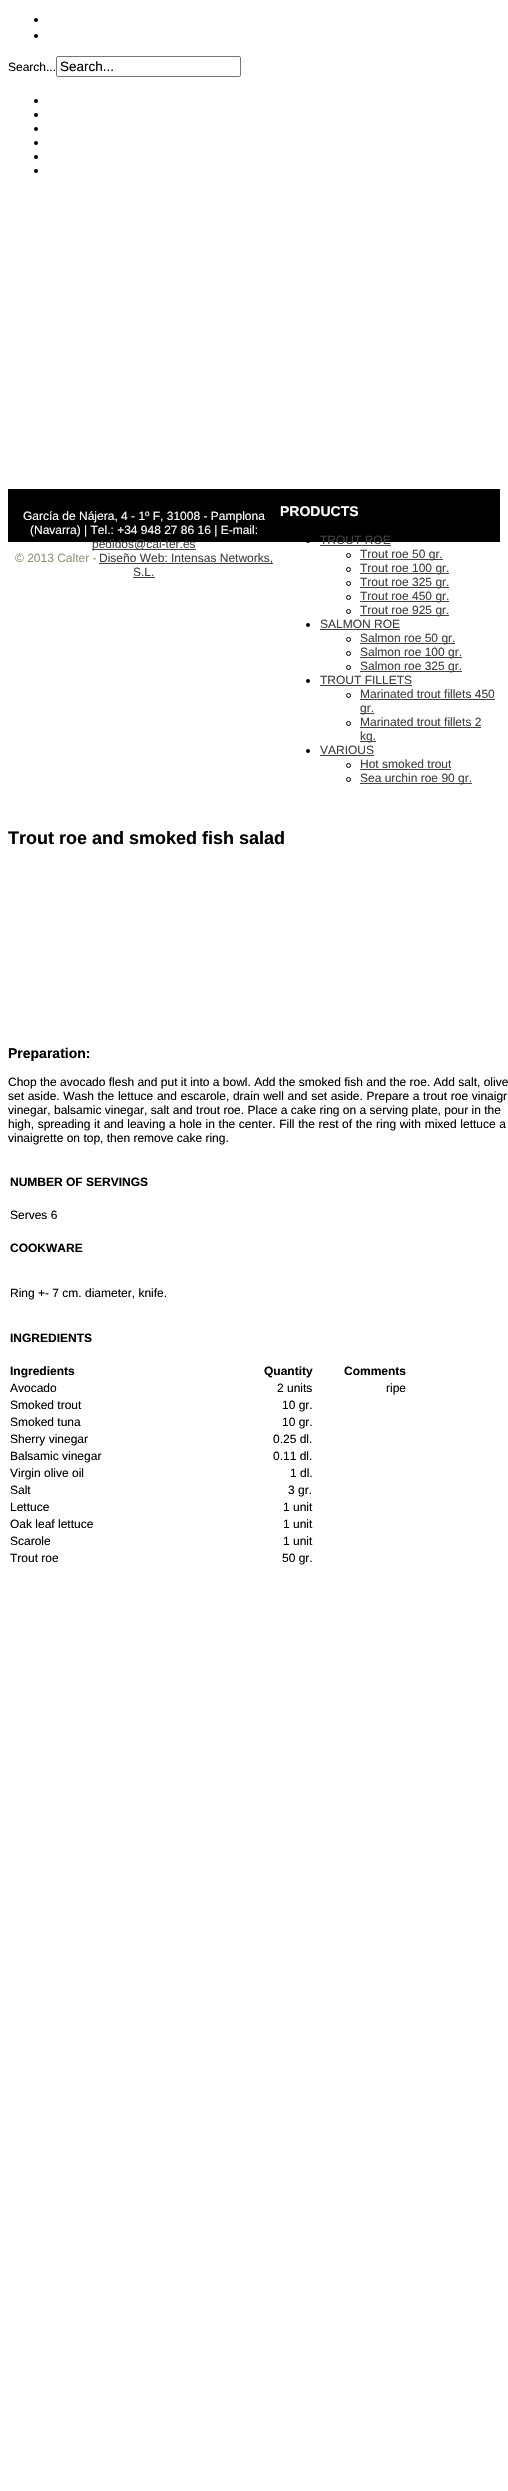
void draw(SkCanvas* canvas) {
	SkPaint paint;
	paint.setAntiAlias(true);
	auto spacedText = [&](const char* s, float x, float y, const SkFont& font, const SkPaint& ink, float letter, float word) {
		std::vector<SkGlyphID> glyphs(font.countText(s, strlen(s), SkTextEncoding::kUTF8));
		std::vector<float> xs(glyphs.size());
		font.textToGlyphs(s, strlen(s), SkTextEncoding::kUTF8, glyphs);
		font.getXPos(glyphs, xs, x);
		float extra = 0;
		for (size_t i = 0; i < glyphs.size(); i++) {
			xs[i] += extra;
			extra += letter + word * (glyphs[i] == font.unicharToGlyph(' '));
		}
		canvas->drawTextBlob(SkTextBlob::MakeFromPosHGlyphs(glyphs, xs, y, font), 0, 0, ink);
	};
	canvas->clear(0xffffffff);
	paint.setColor(0xff000000);
	canvas->drawCircle(36, 20, 2, paint);
	canvas->drawCircle(36, 36, 2, paint);
	SkFont f1(fontMgr->matchFamilyStyle("Liberation Sans", SkFontStyle::Normal()), 12);
	f1.setSubpixel(true);
	canvas->drawString("Search...", 8, 71, f1, paint);
	paint.setStroke(true);
	paint.setStrokeWidth(1);
	paint.setColor(0xff767676);
	canvas->drawRoundRect(SkRect::MakeXYWH(56.5, 56.5, 184, 20), 1.5, 1.5, paint);
	SkFont f2(fontMgr->matchFamilyStyle("Liberation Sans", SkFontStyle::Normal()), 13.5);
	f2.setSubpixel(true);
	paint.setStroke(false);
	paint.setColor(0xff000000);
	canvas->drawString("Search...", 60, 71, f2, paint);
	canvas->drawCircle(36, 101, 2, paint);
	canvas->drawCircle(36, 115, 2, paint);
	canvas->drawCircle(36, 129, 2, paint);
	canvas->drawCircle(36, 143, 2, paint);
	canvas->drawCircle(36, 157, 2, paint);
	canvas->drawCircle(36, 171, 2, paint);
	canvas->drawRect(SkRect::MakeXYWH(8, 489, 492, 53), paint);
	SkFont f3(fontMgr->matchFamilyStyle("Liberation Sans", SkFontStyle::Bold()), 14);
	f3.setSubpixel(true);
	paint.setColor(0xffffffff);
	canvas->drawString("PRODUCTS", 280, 516, f3, paint);
	paint.setColor(0xff000000);
	canvas->drawCircle(308, 541, 2, paint);
	paint.setColor(0xff41403e);
	canvas->drawString("TROUT ROE", 320, 544, f1, paint);
	canvas->drawRect(SkRect::MakeXYWH(320, 545, 71, 1), paint);
	paint.setStroke(true);
	paint.setColor(0xff000000);
	canvas->drawCircle(348.5, 555.5, 2, paint);
	paint.setStroke(false);
	paint.setColor(0xff41403e);
	canvas->drawRect(SkRect::MakeXYWH(360, 559, 83, 1), paint);
	canvas->drawString("Trout roe 50 gr.", 360, 558, f1, paint);
	paint.setStroke(true);
	paint.setColor(0xff000000);
	canvas->drawCircle(348.5, 569.5, 2, paint);
	paint.setStroke(false);
	paint.setColor(0xff41403e);
	canvas->drawRect(SkRect::MakeXYWH(360, 573, 89, 1), paint);
	canvas->drawString("Trout roe 100 gr.", 360, 572, f1, paint);
	paint.setStroke(true);
	paint.setColor(0xff000000);
	canvas->drawCircle(348.5, 583.5, 2, paint);
	paint.setStroke(false);
	paint.setColor(0xff41403e);
	canvas->drawRect(SkRect::MakeXYWH(360, 587, 89, 1), paint);
	canvas->drawString("Trout roe 325 gr.", 360, 586, f1, paint);
	paint.setStroke(true);
	paint.setColor(0xff000000);
	canvas->drawCircle(348.5, 597.5, 2, paint);
	paint.setStroke(false);
	paint.setColor(0xff41403e);
	canvas->drawRect(SkRect::MakeXYWH(360, 601, 89, 1), paint);
	canvas->drawString("Trout roe 450 gr.", 360, 600, f1, paint);
	paint.setStroke(true);
	paint.setColor(0xff000000);
	canvas->drawCircle(348.5, 611.5, 2, paint);
	paint.setStroke(false);
	paint.setColor(0xff41403e);
	canvas->drawRect(SkRect::MakeXYWH(360, 615, 89, 1), paint);
	canvas->drawString("Trout roe 925 gr.", 360, 614, f1, paint);
	paint.setColor(0xff000000);
	canvas->drawCircle(308, 625, 2, paint);
	paint.setColor(0xff41403e);
	canvas->drawString("SALMON ROE", 320, 628, f1, paint);
	canvas->drawRect(SkRect::MakeXYWH(320, 629, 80, 1), paint);
	paint.setStroke(true);
	paint.setColor(0xff000000);
	canvas->drawCircle(348.5, 639.5, 2, paint);
	paint.setStroke(false);
	paint.setColor(0xff41403e);
	canvas->drawRect(SkRect::MakeXYWH(360, 643, 95, 1), paint);
	canvas->drawString("Salmon roe 50 gr.", 360, 642, f1, paint);
	paint.setStroke(true);
	paint.setColor(0xff000000);
	canvas->drawCircle(348.5, 653.5, 2, paint);
	paint.setStroke(false);
	paint.setColor(0xff41403e);
	canvas->drawRect(SkRect::MakeXYWH(360, 657, 102, 1), paint);
	canvas->drawString("Salmon roe 100 gr.", 360, 656, f1, paint);
	paint.setStroke(true);
	paint.setColor(0xff000000);
	canvas->drawCircle(348.5, 667.5, 2, paint);
	paint.setStroke(false);
	paint.setColor(0xff41403e);
	canvas->drawRect(SkRect::MakeXYWH(360, 671, 102, 1), paint);
	canvas->drawString("Salmon roe 325 gr.", 360, 670, f1, paint);
	paint.setColor(0xff000000);
	canvas->drawCircle(308, 681, 2, paint);
	paint.setColor(0xff41403e);
	canvas->drawString("TROUT FILLETS", 320, 684, f1, paint);
	canvas->drawRect(SkRect::MakeXYWH(320, 685, 92, 1), paint);
	paint.setStroke(true);
	paint.setColor(0xff000000);
	canvas->drawCircle(348.5, 695.5, 2, paint);
	paint.setStroke(false);
	paint.setColor(0xff41403e);
	canvas->drawString("Marinated trout fillets 450", 360, 698, f1, paint);
	canvas->drawRect(SkRect::MakeXYWH(360, 699, 135, 1), paint);
	canvas->drawRect(SkRect::MakeXYWH(360, 713, 14, 1), paint);
	canvas->drawString("gr.", 360, 712, f1, paint);
	paint.setStroke(true);
	paint.setColor(0xff000000);
	canvas->drawCircle(348.5, 723.5, 2, paint);
	paint.setStroke(false);
	paint.setColor(0xff41403e);
	canvas->drawString("Marinated trout fillets 2", 360, 726, f1, paint);
	canvas->drawRect(SkRect::MakeXYWH(360, 727, 121, 1), paint);
	canvas->drawRect(SkRect::MakeXYWH(360, 741, 16, 1), paint);
	canvas->drawString("kg.", 360, 740, f1, paint);
	paint.setColor(0xff000000);
	canvas->drawCircle(308, 751, 2, paint);
	paint.setColor(0xff41403e);
	canvas->drawString("VARIOUS", 320, 754, f1, paint);
	canvas->drawRect(SkRect::MakeXYWH(320, 755, 54, 1), paint);
	paint.setStroke(true);
	paint.setColor(0xff000000);
	canvas->drawCircle(348.5, 765.5, 2, paint);
	paint.setStroke(false);
	paint.setColor(0xff41403e);
	canvas->drawString("Hot smoked trout", 360, 768, f1, paint);
	canvas->drawRect(SkRect::MakeXYWH(360, 769, 91, 1), paint);
	paint.setStroke(true);
	paint.setColor(0xff000000);
	canvas->drawCircle(348.5, 779.5, 2, paint);
	paint.setStroke(false);
	paint.setColor(0xff41403e);
	canvas->drawRect(SkRect::MakeXYWH(360, 783, 112, 1), paint);
	canvas->drawString("Sea urchin roe 90 gr.", 360, 782, f1, paint);
	SkFont f4(fontMgr->matchFamilyStyle("Liberation Sans", SkFontStyle::Bold()), 18);
	f4.setSubpixel(true);
	paint.setColor(0xff000000);
	canvas->drawString("Trout roe and smoked fish salad", 8, 844, f4, paint);
	canvas->drawString("Preparation:", 8, 1058, f3, paint);
	canvas->drawString("Chop the avocado flesh and put it into a bowl. Add the smoked fish and the roe. Add salt, olive", 8, 1086, f1, paint);
	spacedText("set aside. Wash the lettuce and escarole, drain well and set aside. Prepare a trout roe vinaigr", 8, 1100, f1, paint, 0, 0.3);
	canvas->drawString("vinegar, balsamic vinegar, salt and trout roe. Place a cake ring on a serving plate, pour in the", 8, 1114, f1, paint);
	spacedText("high, spreading it and leaving a hole in the center. Fill the rest of the ring with mixed lettuce a", 8, 1128, f1, paint, 0, 0.3);
	canvas->drawString("vinaigrette on top, then remove cake ring.", 8, 1142, f1, paint);
	SkFont f5(fontMgr->matchFamilyStyle("Liberation Sans", SkFontStyle::Bold()), 12);
	f5.setSubpixel(true);
	canvas->drawString("NUMBER OF SERVINGS", 10, 1186, f5, paint);
	canvas->drawString("Serves 6", 10, 1219, f1, paint);
	canvas->drawString("COOKWARE", 10, 1252, f5, paint);
	canvas->drawString("Ring +- 7 cm. diameter, knife.", 10, 1297, f1, paint);
	canvas->drawString("INGREDIENTS", 10, 1342, f5, paint);
	canvas->drawString("Ingredients", 10, 1375, f5, paint);
	canvas->drawString("Quantity", 264, 1375, f5, paint);
	canvas->drawString("Comments", 344, 1375, f5, paint);
	canvas->drawString("Avocado", 10, 1392, f1, paint);
	canvas->drawString("2 units", 277, 1392, f1, paint);
	canvas->drawString("ripe", 386, 1392, f1, paint);
	canvas->drawString("Smoked trout", 10, 1409, f1, paint);
	canvas->drawString("10 gr.", 282, 1409, f1, paint);
	canvas->drawString("Smoked tuna", 10, 1426, f1, paint);
	canvas->drawString("10 gr.", 282, 1426, f1, paint);
	canvas->drawString("Sherry vinegar", 10, 1443, f1, paint);
	canvas->drawString("0.25 dl.", 273, 1443, f1, paint);
	canvas->drawString("Balsamic vinegar", 10, 1460, f1, paint);
	canvas->drawString("0.11 dl.", 273, 1460, f1, paint);
	canvas->drawString("Virgin olive oil", 10, 1477, f1, paint);
	canvas->drawString("1 dl.", 290, 1477, f1, paint);
	canvas->drawString("Salt", 10, 1494, f1, paint);
	canvas->drawString("3 gr.", 288, 1494, f1, paint);
	canvas->drawString("Lettuce", 10, 1511, f1, paint);
	canvas->drawString("1 unit", 283, 1511, f1, paint);
	canvas->drawString("Oak leaf lettuce", 10, 1528, f1, paint);
	canvas->drawString("1 unit", 283, 1528, f1, paint);
	canvas->drawString("Scarole", 10, 1545, f1, paint);
	canvas->drawString("1 unit", 283, 1545, f1, paint);
	canvas->drawString("Trout roe", 10, 1562, f1, paint);
	canvas->drawString("50 gr.", 282, 1562, f1, paint);
	paint.setColor(0xffffffff);
	canvas->drawString("García de Nájera, 4 - 1º F, 31008 - Pamplona", 23, 520, f1, paint);
	canvas->drawString("(Navarra) | Tel.: +34 948 27 86 16 | E-mail:", 30, 534, f1, paint);
	paint.setColor(0xff41403e);
	canvas->drawRect(SkRect::MakeXYWH(92, 549, 104, 1), paint);
	canvas->drawString("pedidos@cal-ter.es", 92, 548, f1, paint);
	paint.setColor(0xff99927d);
	canvas->drawString("© 2013 Calter -", 15, 562, f1, paint);
	paint.setColor(0xff41403e);
	canvas->drawRect(SkRect::MakeXYWH(99, 563, 174, 1), paint);
	canvas->drawString("Diseño Web: Intensas Networks,", 99, 562, f1, paint);
	canvas->drawString("S.L.", 133, 576, f1, paint);
	canvas->drawRect(SkRect::MakeXYWH(133, 577, 22, 1), paint);
}
